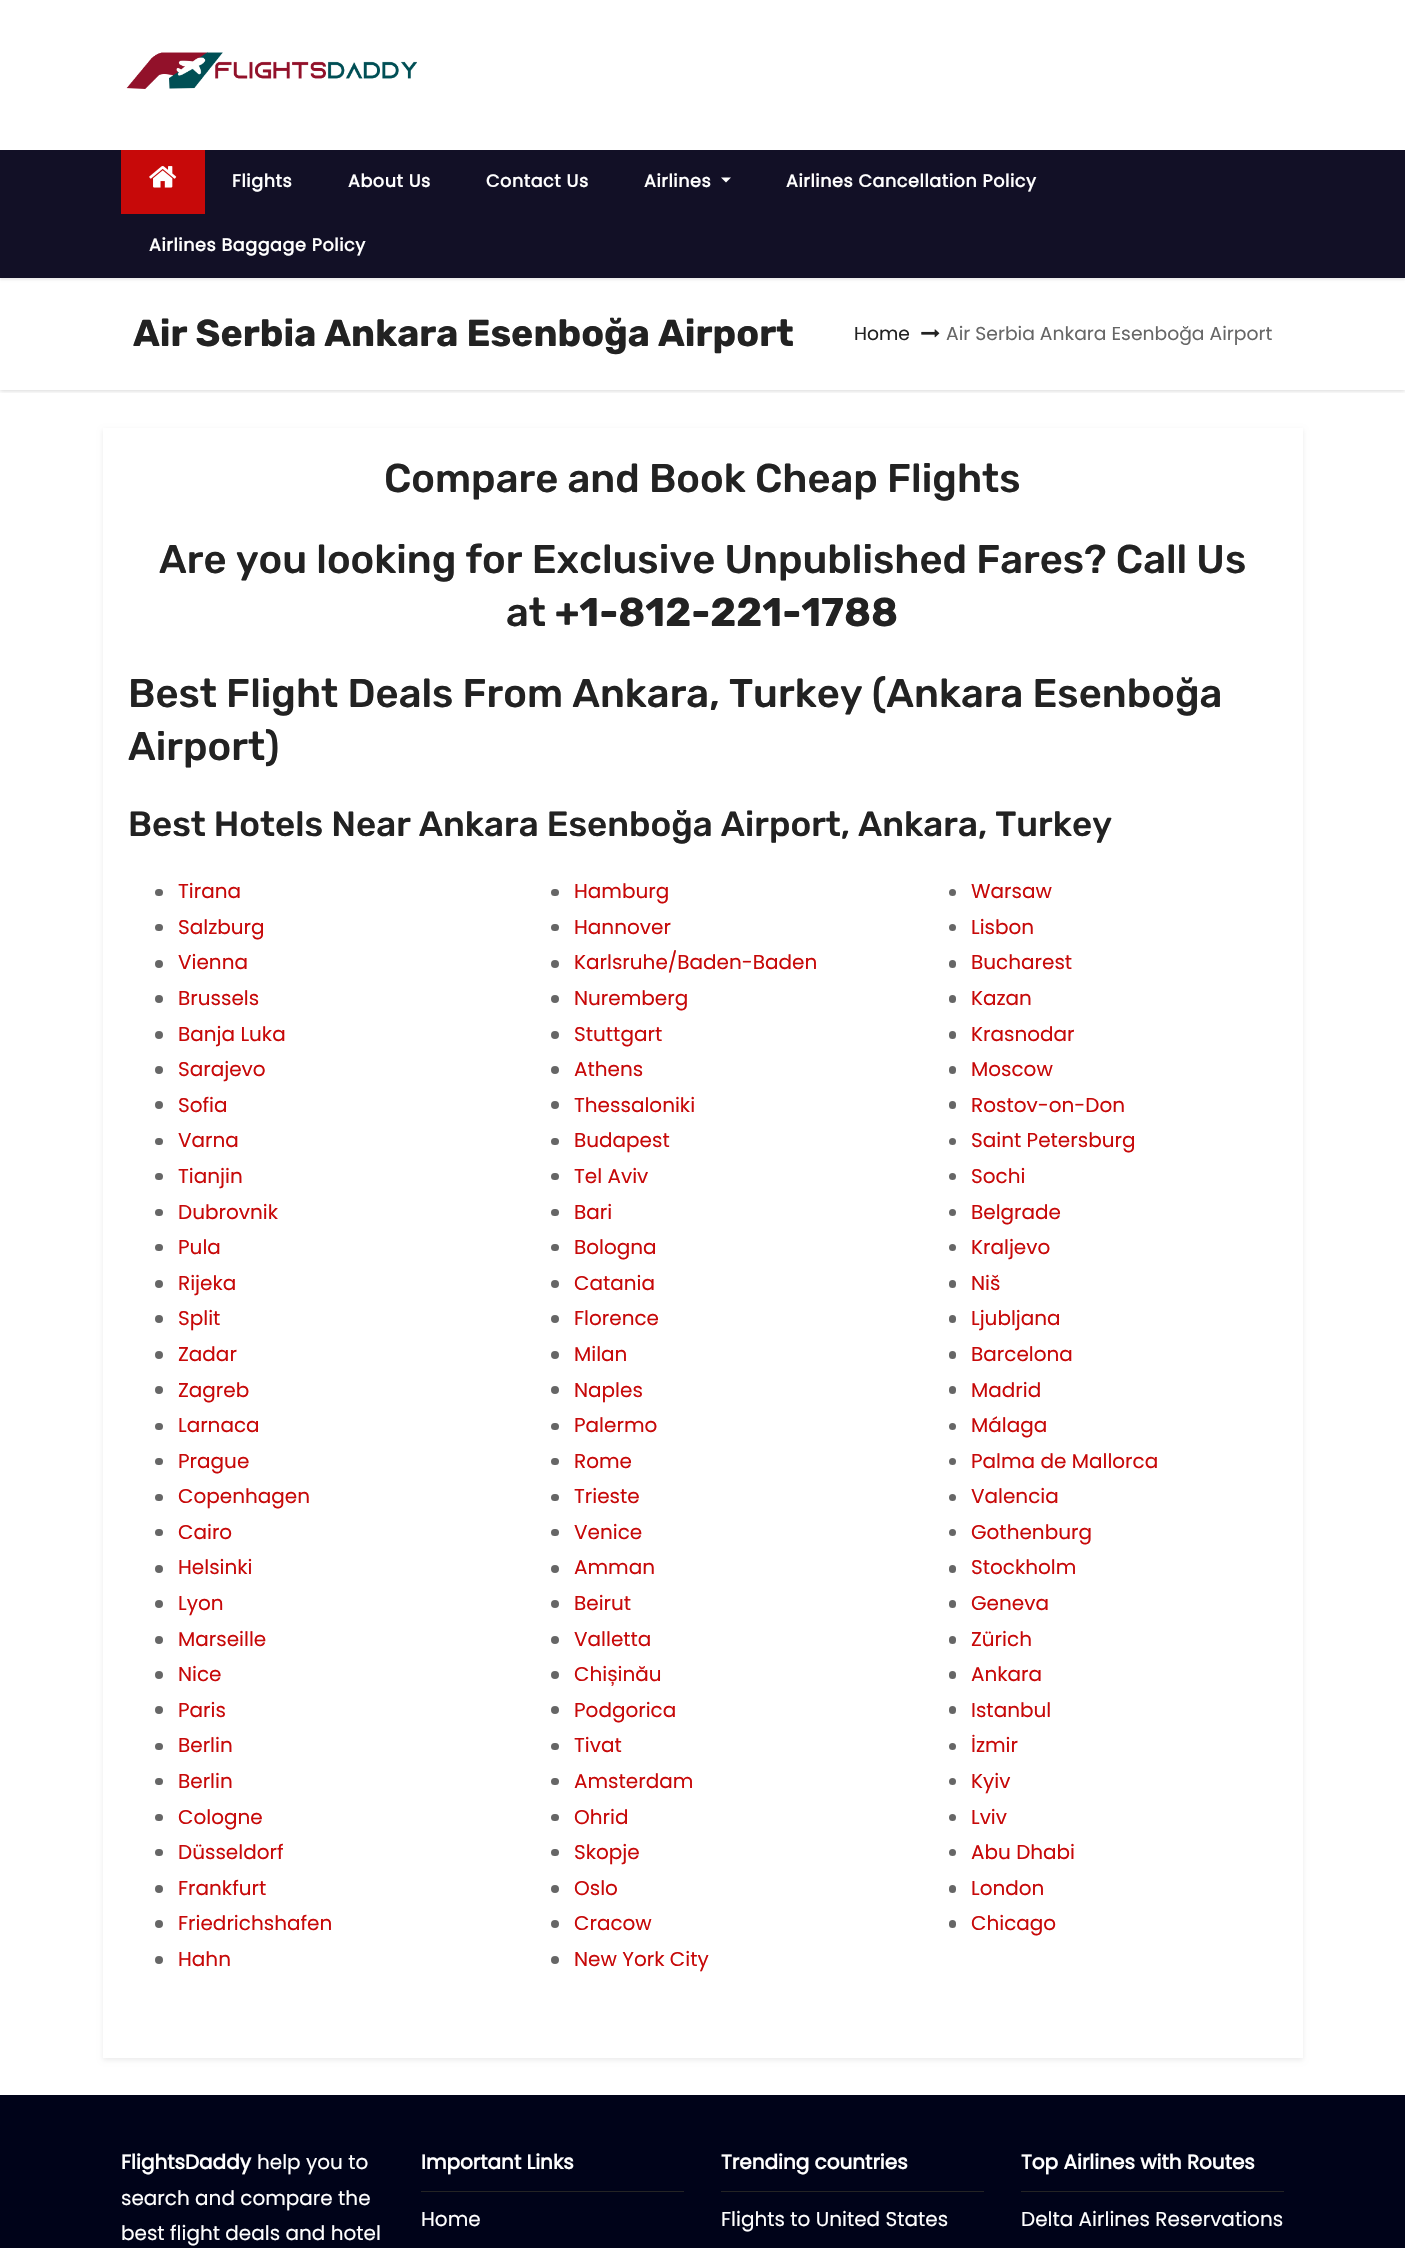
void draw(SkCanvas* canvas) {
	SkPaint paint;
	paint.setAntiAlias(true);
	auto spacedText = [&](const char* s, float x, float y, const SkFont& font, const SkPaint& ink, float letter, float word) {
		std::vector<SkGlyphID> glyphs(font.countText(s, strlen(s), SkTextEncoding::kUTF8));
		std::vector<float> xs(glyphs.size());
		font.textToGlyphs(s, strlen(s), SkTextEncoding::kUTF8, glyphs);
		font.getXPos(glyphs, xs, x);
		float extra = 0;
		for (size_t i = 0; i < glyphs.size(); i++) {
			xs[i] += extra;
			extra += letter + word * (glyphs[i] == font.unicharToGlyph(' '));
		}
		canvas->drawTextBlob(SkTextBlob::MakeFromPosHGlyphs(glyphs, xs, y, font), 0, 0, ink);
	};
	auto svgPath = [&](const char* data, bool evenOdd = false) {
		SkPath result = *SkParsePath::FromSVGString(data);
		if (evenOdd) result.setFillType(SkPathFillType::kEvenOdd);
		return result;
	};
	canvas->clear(0xffffffff);
	canvas->drawImageRect(SkImages::DeferredFromEncodedData(SkData::MakeFromFileName("img1.png")), SkRect::MakeXYWH(126, 52, 291, 37), SkSamplingOptions());
	paint.setColor(0x14000000);
	paint.setMaskFilter(SkMaskFilter::MakeBlur(kNormal_SkBlurStyle, 1));
	canvas->drawRect(SkRect::MakeXYWH(0, 153, 1405, 127), paint);
	paint.setMaskFilter(nullptr);
	canvas->save();
	canvas->clipRect(SkRect::MakeXYWH(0, 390, 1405, 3));
	paint.setColor(0x26000000);
	paint.setMaskFilter(SkMaskFilter::MakeBlur(kNormal_SkBlurStyle, 2));
	canvas->drawRect(SkRect::MakeXYWH(0, 279, 1405, 112), paint);
	paint.setMaskFilter(nullptr);
	canvas->restore();
	paint.setColor(0xff121026);
	canvas->drawRect(SkRect::MakeXYWH(0, 150, 1405, 128), paint);
	paint.setColor(0xffc70909);
	canvas->drawRect(SkRect::MakeXYWH(121, 150, 84, 64), paint);
	canvas->drawImageRect(SkImages::DeferredFromEncodedData(SkData::MakeFromFileName("img2.png")), SkRect::MakeXYWH(149, 166, 28, 22), SkSamplingOptions());
	SkFont f1(fontMgr->matchFamilyStyle("Poppins", SkFontStyle::Bold()), 17.5);
	f1.setSubpixel(true);
	paint.setColor(0xffffffff);
	spacedText("Flights", 232, 187, f1, paint, 0.6, 0);
	spacedText("About Us", 348, 187, f1, paint, 0.6, 0);
	spacedText("Contact Us", 486, 187, f1, paint, 0.6, 0);
	spacedText("Airlines", 644, 187, f1, paint, 0.6, 0);
	canvas->drawPath(svgPath("M721 177.5H731L726 182.5Z"), paint);
	spacedText("Airlines Cancellation Policy", 786, 187, f1, paint, 0.6, 0);
	spacedText("Airlines Baggage Policy", 149, 251, f1, paint, 0.6, 0);
	SkFont f2(fontMgr->matchFamilyStyle("Rubik", SkFontStyle::Bold()), 37.5);
	f2.setSubpixel(true);
	paint.setColor(0xff222222);
	canvas->drawString("Air Serbia Ankara Esenboğa Airport", 133, 346, f2, paint);
	SkFont f3(fontMgr->matchFamilyStyle("Poppins", SkFontStyle::Normal()), 18.75);
	f3.setSubpixel(true);
	canvas->drawString("Home", 854, 340, f3, paint);
	canvas->drawImageRect(SkImages::DeferredFromEncodedData(SkData::MakeFromFileName("img3.png")), SkRect::MakeXYWH(921, 329, 19, 9), SkSamplingOptions());
	paint.setColor(0xff666666);
	canvas->drawString("Air Serbia Ankara Esenboğa Airport", 946, 340, f3, paint);
	paint.setColor(0x14000000);
	paint.setMaskFilter(SkMaskFilter::MakeBlur(kNormal_SkBlurStyle, 2.5));
	canvas->drawRect(SkRect::MakeXYWH(103, 430, 1200, 1630), paint);
	paint.setMaskFilter(nullptr);
	paint.setColor(0xffffffff);
	canvas->drawRect(SkRect::MakeXYWH(103, 428, 1200, 1630), paint);
	SkFont f4(fontMgr->matchFamilyStyle("Rubik", SkFontStyle(500, SkFontStyle::kNormal_Width, SkFontStyle::kUpright_Slant)), 40);
	f4.setSubpixel(true);
	paint.setColor(0xff222222);
	canvas->drawString("Compare and Book Cheap Flights", 384, 492, f4, paint);
	canvas->drawString("Are you looking for Exclusive Unpublished Fares? Call Us", 159, 573, f4, paint);
	canvas->drawString("at", 506, 626, f4, paint);
	SkFont f5(fontMgr->matchFamilyStyle("Rubik", SkFontStyle::Bold()), 40);
	f5.setSubpixel(true);
	canvas->drawString("+1-812-221-1788", 555, 626, f5, paint);
	canvas->drawString("Best Flight Deals From Ankara, Turkey (Ankara Esenboğa", 128, 707, f4, paint);
	canvas->drawString("Airport)", 128, 760, f4, paint);
	SkFont f6(fontMgr->matchFamilyStyle("Rubik", SkFontStyle(500, SkFontStyle::kNormal_Width, SkFontStyle::kUpright_Slant)), 35);
	f6.setSubpixel(true);
	canvas->drawString("Best Hotels Near Ankara Esenboğa Airport, Ankara, Turkey", 128, 836, f6, paint);
	paint.setColor(0xff666666);
	canvas->drawRoundRect(SkRect::MakeXYWH(155, 889, 8, 7), 3.5, 3.5, paint);
	SkFont f7(fontMgr->matchFamilyStyle("Poppins", SkFontStyle::Normal()), 20);
	f7.setSubpixel(true);
	paint.setColor(0xffc70909);
	canvas->drawString("Tirana", 178, 898, f7, paint);
	paint.setColor(0xff666666);
	canvas->drawRoundRect(SkRect::MakeXYWH(155, 924, 8, 7), 3.5, 3.5, paint);
	paint.setColor(0xffc70909);
	canvas->drawString("Salzburg", 178, 934, f7, paint);
	paint.setColor(0xff666666);
	canvas->drawCircle(159, 964, 4, paint);
	paint.setColor(0xffc70909);
	canvas->drawString("Vienna", 178, 969, f7, paint);
	paint.setColor(0xff666666);
	canvas->drawCircle(159, 999, 4, paint);
	paint.setColor(0xffc70909);
	canvas->drawString("Brussels", 178, 1005, f7, paint);
	paint.setColor(0xff666666);
	canvas->drawCircle(159, 1035, 4, paint);
	paint.setColor(0xffc70909);
	canvas->drawString("Banja Luka", 178, 1041, f7, paint);
	paint.setColor(0xff666666);
	canvas->drawCircle(159, 1070, 4, paint);
	paint.setColor(0xffc70909);
	canvas->drawString("Sarajevo", 178, 1076, f7, paint);
	paint.setColor(0xff666666);
	canvas->drawCircle(159, 1105, 4, paint);
	paint.setColor(0xffc70909);
	canvas->drawString("Sofia", 178, 1112, f7, paint);
	paint.setColor(0xff666666);
	canvas->drawRoundRect(SkRect::MakeXYWH(155, 1138, 8, 7), 3.5, 3.5, paint);
	paint.setColor(0xffc70909);
	canvas->drawString("Varna", 178, 1147, f7, paint);
	paint.setColor(0xff666666);
	canvas->drawRoundRect(SkRect::MakeXYWH(155, 1173, 8, 7), 3.5, 3.5, paint);
	paint.setColor(0xffc70909);
	canvas->drawString("Tianjin", 178, 1183, f7, paint);
	paint.setColor(0xff666666);
	canvas->drawRoundRect(SkRect::MakeXYWH(155, 1209, 8, 7), 3.5, 3.5, paint);
	paint.setColor(0xffc70909);
	canvas->drawString("Dubrovnik", 178, 1219, f7, paint);
	paint.setColor(0xff666666);
	canvas->drawRoundRect(SkRect::MakeXYWH(155, 1244, 8, 7), 3.5, 3.5, paint);
	paint.setColor(0xffc70909);
	canvas->drawString("Pula", 178, 1254, f7, paint);
	paint.setColor(0xff666666);
	canvas->drawCircle(159, 1284, 4, paint);
	paint.setColor(0xffc70909);
	canvas->drawString("Rijeka", 178, 1290, f7, paint);
	paint.setColor(0xff666666);
	canvas->drawCircle(159, 1319, 4, paint);
	paint.setColor(0xffc70909);
	canvas->drawString("Split", 178, 1325, f7, paint);
	paint.setColor(0xff666666);
	canvas->drawCircle(159, 1355, 4, paint);
	paint.setColor(0xffc70909);
	canvas->drawString("Zadar", 178, 1361, f7, paint);
	paint.setColor(0xff666666);
	canvas->drawCircle(159, 1390, 4, paint);
	paint.setColor(0xffc70909);
	canvas->drawString("Zagreb", 178, 1397, f7, paint);
	paint.setColor(0xff666666);
	canvas->drawRoundRect(SkRect::MakeXYWH(155, 1423, 8, 7), 3.5, 3.5, paint);
	paint.setColor(0xffc70909);
	canvas->drawString("Larnaca", 178, 1432, f7, paint);
	paint.setColor(0xff666666);
	canvas->drawRoundRect(SkRect::MakeXYWH(155, 1458, 8, 7), 3.5, 3.5, paint);
	paint.setColor(0xffc70909);
	canvas->drawString("Prague", 178, 1468, f7, paint);
	paint.setColor(0xff666666);
	canvas->drawRoundRect(SkRect::MakeXYWH(155, 1494, 8, 7), 3.5, 3.5, paint);
	paint.setColor(0xffc70909);
	canvas->drawString("Copenhagen", 178, 1503, f7, paint);
	paint.setColor(0xff666666);
	canvas->drawRoundRect(SkRect::MakeXYWH(155, 1529, 8, 7), 3.5, 3.5, paint);
	paint.setColor(0xffc70909);
	canvas->drawString("Cairo", 178, 1539, f7, paint);
	paint.setColor(0xff666666);
	canvas->drawCircle(159, 1569, 4, paint);
	paint.setColor(0xffc70909);
	canvas->drawString("Helsinki", 178, 1574, f7, paint);
	paint.setColor(0xff666666);
	canvas->drawCircle(159, 1604, 4, paint);
	paint.setColor(0xffc70909);
	canvas->drawString("Lyon", 178, 1610, f7, paint);
	paint.setColor(0xff666666);
	canvas->drawCircle(159, 1640, 4, paint);
	paint.setColor(0xffc70909);
	canvas->drawString("Marseille", 178, 1646, f7, paint);
	paint.setColor(0xff666666);
	canvas->drawCircle(159, 1675, 4, paint);
	paint.setColor(0xffc70909);
	canvas->drawString("Nice", 178, 1681, f7, paint);
	paint.setColor(0xff666666);
	canvas->drawCircle(159, 1710, 4, paint);
	paint.setColor(0xffc70909);
	canvas->drawString("Paris", 178, 1717, f7, paint);
	paint.setColor(0xff666666);
	canvas->drawRoundRect(SkRect::MakeXYWH(155, 1743, 8, 7), 3.5, 3.5, paint);
	paint.setColor(0xffc70909);
	canvas->drawString("Berlin", 178, 1752, f7, paint);
	paint.setColor(0xff666666);
	canvas->drawRoundRect(SkRect::MakeXYWH(155, 1778, 8, 7), 3.5, 3.5, paint);
	paint.setColor(0xffc70909);
	canvas->drawString("Berlin", 178, 1788, f7, paint);
	paint.setColor(0xff666666);
	canvas->drawRoundRect(SkRect::MakeXYWH(155, 1814, 8, 7), 3.5, 3.5, paint);
	paint.setColor(0xffc70909);
	canvas->drawString("Cologne", 178, 1824, f7, paint);
	paint.setColor(0xff666666);
	canvas->drawRoundRect(SkRect::MakeXYWH(155, 1849, 8, 7), 3.5, 3.5, paint);
	paint.setColor(0xffc70909);
	canvas->drawString("Düsseldorf", 178, 1859, f7, paint);
	paint.setColor(0xff666666);
	canvas->drawCircle(159, 1889, 4, paint);
	paint.setColor(0xffc70909);
	canvas->drawString("Frankfurt", 178, 1895, f7, paint);
	paint.setColor(0xff666666);
	canvas->drawCircle(159, 1924, 4, paint);
	paint.setColor(0xffc70909);
	canvas->drawString("Friedrichshafen", 178, 1930, f7, paint);
	paint.setColor(0xff666666);
	canvas->drawCircle(159, 1960, 4, paint);
	paint.setColor(0xffc70909);
	canvas->drawString("Hahn", 178, 1966, f7, paint);
	paint.setColor(0xff666666);
	canvas->drawRoundRect(SkRect::MakeXYWH(551, 889, 8, 7), 3.5, 3.5, paint);
	paint.setColor(0xffc70909);
	canvas->drawString("Hamburg", 574, 898, f7, paint);
	paint.setColor(0xff666666);
	canvas->drawRoundRect(SkRect::MakeXYWH(551, 924, 8, 7), 3.5, 3.5, paint);
	paint.setColor(0xffc70909);
	canvas->drawString("Hannover", 574, 934, f7, paint);
	paint.setColor(0xff666666);
	canvas->drawCircle(555, 964, 4, paint);
	paint.setColor(0xffc70909);
	canvas->drawString("Karlsruhe/Baden-Baden", 574, 969, f7, paint);
	paint.setColor(0xff666666);
	canvas->drawCircle(555, 999, 4, paint);
	paint.setColor(0xffc70909);
	canvas->drawString("Nuremberg", 574, 1005, f7, paint);
	paint.setColor(0xff666666);
	canvas->drawCircle(555, 1035, 4, paint);
	paint.setColor(0xffc70909);
	canvas->drawString("Stuttgart", 574, 1041, f7, paint);
	paint.setColor(0xff666666);
	canvas->drawCircle(555, 1070, 4, paint);
	paint.setColor(0xffc70909);
	canvas->drawString("Athens", 574, 1076, f7, paint);
	paint.setColor(0xff666666);
	canvas->drawCircle(555, 1105, 4, paint);
	paint.setColor(0xffc70909);
	canvas->drawString("Thessaloniki", 574, 1112, f7, paint);
	paint.setColor(0xff666666);
	canvas->drawRoundRect(SkRect::MakeXYWH(551, 1138, 8, 7), 3.5, 3.5, paint);
	paint.setColor(0xffc70909);
	canvas->drawString("Budapest", 574, 1147, f7, paint);
	paint.setColor(0xff666666);
	canvas->drawRoundRect(SkRect::MakeXYWH(551, 1173, 8, 7), 3.5, 3.5, paint);
	paint.setColor(0xffc70909);
	canvas->drawString("Tel Aviv", 574, 1183, f7, paint);
	paint.setColor(0xff666666);
	canvas->drawRoundRect(SkRect::MakeXYWH(551, 1209, 8, 7), 3.5, 3.5, paint);
	paint.setColor(0xffc70909);
	canvas->drawString("Bari", 574, 1219, f7, paint);
	paint.setColor(0xff666666);
	canvas->drawRoundRect(SkRect::MakeXYWH(551, 1244, 8, 7), 3.5, 3.5, paint);
	paint.setColor(0xffc70909);
	canvas->drawString("Bologna", 574, 1254, f7, paint);
	paint.setColor(0xff666666);
	canvas->drawCircle(555, 1284, 4, paint);
	paint.setColor(0xffc70909);
	canvas->drawString("Catania", 574, 1290, f7, paint);
	paint.setColor(0xff666666);
	canvas->drawCircle(555, 1319, 4, paint);
	paint.setColor(0xffc70909);
	canvas->drawString("Florence", 574, 1325, f7, paint);
	paint.setColor(0xff666666);
	canvas->drawCircle(555, 1355, 4, paint);
	paint.setColor(0xffc70909);
	canvas->drawString("Milan", 574, 1361, f7, paint);
	paint.setColor(0xff666666);
	canvas->drawCircle(555, 1390, 4, paint);
	paint.setColor(0xffc70909);
	canvas->drawString("Naples", 574, 1397, f7, paint);
	paint.setColor(0xff666666);
	canvas->drawRoundRect(SkRect::MakeXYWH(551, 1423, 8, 7), 3.5, 3.5, paint);
	paint.setColor(0xffc70909);
	canvas->drawString("Palermo", 574, 1432, f7, paint);
	paint.setColor(0xff666666);
	canvas->drawRoundRect(SkRect::MakeXYWH(551, 1458, 8, 7), 3.5, 3.5, paint);
	paint.setColor(0xffc70909);
	canvas->drawString("Rome", 574, 1468, f7, paint);
	paint.setColor(0xff666666);
	canvas->drawRoundRect(SkRect::MakeXYWH(551, 1494, 8, 7), 3.5, 3.5, paint);
	paint.setColor(0xffc70909);
	canvas->drawString("Trieste", 574, 1503, f7, paint);
	paint.setColor(0xff666666);
	canvas->drawRoundRect(SkRect::MakeXYWH(551, 1529, 8, 7), 3.5, 3.5, paint);
	paint.setColor(0xffc70909);
	canvas->drawString("Venice", 574, 1539, f7, paint);
	paint.setColor(0xff666666);
	canvas->drawCircle(555, 1569, 4, paint);
	paint.setColor(0xffc70909);
	canvas->drawString("Amman", 574, 1574, f7, paint);
	paint.setColor(0xff666666);
	canvas->drawCircle(555, 1604, 4, paint);
	paint.setColor(0xffc70909);
	canvas->drawString("Beirut", 574, 1610, f7, paint);
	paint.setColor(0xff666666);
	canvas->drawCircle(555, 1640, 4, paint);
	paint.setColor(0xffc70909);
	canvas->drawString("Valletta", 574, 1646, f7, paint);
	paint.setColor(0xff666666);
	canvas->drawCircle(555, 1675, 4, paint);
	paint.setColor(0xffc70909);
	canvas->drawString("Chișinău", 574, 1681, f7, paint);
	paint.setColor(0xff666666);
	canvas->drawCircle(555, 1710, 4, paint);
	paint.setColor(0xffc70909);
	canvas->drawString("Podgorica", 574, 1717, f7, paint);
	paint.setColor(0xff666666);
	canvas->drawRoundRect(SkRect::MakeXYWH(551, 1743, 8, 7), 3.5, 3.5, paint);
	paint.setColor(0xffc70909);
	canvas->drawString("Tivat", 574, 1752, f7, paint);
	paint.setColor(0xff666666);
	canvas->drawRoundRect(SkRect::MakeXYWH(551, 1778, 8, 7), 3.5, 3.5, paint);
	paint.setColor(0xffc70909);
	canvas->drawString("Amsterdam", 574, 1788, f7, paint);
	paint.setColor(0xff666666);
	canvas->drawRoundRect(SkRect::MakeXYWH(551, 1814, 8, 7), 3.5, 3.5, paint);
	paint.setColor(0xffc70909);
	canvas->drawString("Ohrid", 574, 1824, f7, paint);
	paint.setColor(0xff666666);
	canvas->drawRoundRect(SkRect::MakeXYWH(551, 1849, 8, 7), 3.5, 3.5, paint);
	paint.setColor(0xffc70909);
	canvas->drawString("Skopje", 574, 1859, f7, paint);
	paint.setColor(0xff666666);
	canvas->drawCircle(555, 1889, 4, paint);
	paint.setColor(0xffc70909);
	canvas->drawString("Oslo", 574, 1895, f7, paint);
	paint.setColor(0xff666666);
	canvas->drawCircle(555, 1924, 4, paint);
	paint.setColor(0xffc70909);
	canvas->drawString("Cracow", 574, 1930, f7, paint);
	paint.setColor(0xff666666);
	canvas->drawCircle(555, 1960, 4, paint);
	paint.setColor(0xffc70909);
	canvas->drawString("New York City", 574, 1966, f7, paint);
	paint.setColor(0xff666666);
	canvas->drawCircle(952.5, 892.5, 3.5, paint);
	paint.setColor(0xffc70909);
	canvas->drawString("Warsaw", 971, 898, f7, paint);
	paint.setColor(0xff666666);
	canvas->drawCircle(952.5, 927.5, 3.5, paint);
	paint.setColor(0xffc70909);
	canvas->drawString("Lisbon", 971, 934, f7, paint);
	paint.setColor(0xff666666);
	canvas->drawRoundRect(SkRect::MakeXYWH(949, 960, 7, 8), 3.5, 3.5, paint);
	paint.setColor(0xffc70909);
	canvas->drawString("Bucharest", 971, 969, f7, paint);
	paint.setColor(0xff666666);
	canvas->drawRoundRect(SkRect::MakeXYWH(949, 995, 7, 8), 3.5, 3.5, paint);
	paint.setColor(0xffc70909);
	canvas->drawString("Kazan", 971, 1005, f7, paint);
	paint.setColor(0xff666666);
	canvas->drawRoundRect(SkRect::MakeXYWH(949, 1031, 7, 8), 3.5, 3.5, paint);
	paint.setColor(0xffc70909);
	canvas->drawString("Krasnodar", 971, 1041, f7, paint);
	paint.setColor(0xff666666);
	canvas->drawRoundRect(SkRect::MakeXYWH(949, 1066, 7, 8), 3.5, 3.5, paint);
	paint.setColor(0xffc70909);
	canvas->drawString("Moscow", 971, 1076, f7, paint);
	paint.setColor(0xff666666);
	canvas->drawRoundRect(SkRect::MakeXYWH(949, 1101, 7, 8), 3.5, 3.5, paint);
	paint.setColor(0xffc70909);
	canvas->drawString("Rostov-on-Don", 971, 1112, f7, paint);
	paint.setColor(0xff666666);
	canvas->drawCircle(952.5, 1141.5, 3.5, paint);
	paint.setColor(0xffc70909);
	canvas->drawString("Saint Petersburg", 971, 1147, f7, paint);
	paint.setColor(0xff666666);
	canvas->drawCircle(952.5, 1176.5, 3.5, paint);
	paint.setColor(0xffc70909);
	canvas->drawString("Sochi", 971, 1183, f7, paint);
	paint.setColor(0xff666666);
	canvas->drawCircle(952.5, 1212.5, 3.5, paint);
	paint.setColor(0xffc70909);
	canvas->drawString("Belgrade", 971, 1219, f7, paint);
	paint.setColor(0xff666666);
	canvas->drawCircle(952.5, 1247.5, 3.5, paint);
	paint.setColor(0xffc70909);
	canvas->drawString("Kraljevo", 971, 1254, f7, paint);
	paint.setColor(0xff666666);
	canvas->drawRoundRect(SkRect::MakeXYWH(949, 1280, 7, 8), 3.5, 3.5, paint);
	paint.setColor(0xffc70909);
	canvas->drawString("Niš", 971, 1290, f7, paint);
	paint.setColor(0xff666666);
	canvas->drawRoundRect(SkRect::MakeXYWH(949, 1315, 7, 8), 3.5, 3.5, paint);
	paint.setColor(0xffc70909);
	canvas->drawString("Ljubljana", 971, 1325, f7, paint);
	paint.setColor(0xff666666);
	canvas->drawRoundRect(SkRect::MakeXYWH(949, 1351, 7, 8), 3.5, 3.5, paint);
	paint.setColor(0xffc70909);
	canvas->drawString("Barcelona", 971, 1361, f7, paint);
	paint.setColor(0xff666666);
	canvas->drawRoundRect(SkRect::MakeXYWH(949, 1386, 7, 8), 3.5, 3.5, paint);
	paint.setColor(0xffc70909);
	canvas->drawString("Madrid", 971, 1397, f7, paint);
	paint.setColor(0xff666666);
	canvas->drawCircle(952.5, 1426.5, 3.5, paint);
	paint.setColor(0xffc70909);
	canvas->drawString("Málaga", 971, 1432, f7, paint);
	paint.setColor(0xff666666);
	canvas->drawCircle(952.5, 1461.5, 3.5, paint);
	paint.setColor(0xffc70909);
	canvas->drawString("Palma de Mallorca", 971, 1468, f7, paint);
	paint.setColor(0xff666666);
	canvas->drawCircle(952.5, 1497.5, 3.5, paint);
	paint.setColor(0xffc70909);
	canvas->drawString("Valencia", 971, 1503, f7, paint);
	paint.setColor(0xff666666);
	canvas->drawCircle(952.5, 1532.5, 3.5, paint);
	paint.setColor(0xffc70909);
	canvas->drawString("Gothenburg", 971, 1539, f7, paint);
	paint.setColor(0xff666666);
	canvas->drawRoundRect(SkRect::MakeXYWH(949, 1565, 7, 8), 3.5, 3.5, paint);
	paint.setColor(0xffc70909);
	canvas->drawString("Stockholm", 971, 1574, f7, paint);
	paint.setColor(0xff666666);
	canvas->drawRoundRect(SkRect::MakeXYWH(949, 1600, 7, 8), 3.5, 3.5, paint);
	paint.setColor(0xffc70909);
	canvas->drawString("Geneva", 971, 1610, f7, paint);
	paint.setColor(0xff666666);
	canvas->drawRoundRect(SkRect::MakeXYWH(949, 1636, 7, 8), 3.5, 3.5, paint);
	paint.setColor(0xffc70909);
	canvas->drawString("Zürich", 971, 1646, f7, paint);
	paint.setColor(0xff666666);
	canvas->drawRoundRect(SkRect::MakeXYWH(949, 1671, 7, 8), 3.5, 3.5, paint);
	paint.setColor(0xffc70909);
	canvas->drawString("Ankara", 971, 1681, f7, paint);
	paint.setColor(0xff666666);
	canvas->drawRoundRect(SkRect::MakeXYWH(949, 1706, 7, 8), 3.5, 3.5, paint);
	paint.setColor(0xffc70909);
	canvas->drawString("Istanbul", 971, 1717, f7, paint);
	paint.setColor(0xff666666);
	canvas->drawCircle(952.5, 1746.5, 3.5, paint);
	paint.setColor(0xffc70909);
	canvas->drawString("İzmir", 971, 1752, f7, paint);
	paint.setColor(0xff666666);
	canvas->drawCircle(952.5, 1781.5, 3.5, paint);
	paint.setColor(0xffc70909);
	canvas->drawString("Kyiv", 971, 1788, f7, paint);
	paint.setColor(0xff666666);
	canvas->drawCircle(952.5, 1817.5, 3.5, paint);
	paint.setColor(0xffc70909);
	canvas->drawString("Lviv", 971, 1824, f7, paint);
	paint.setColor(0xff666666);
	canvas->drawCircle(952.5, 1852.5, 3.5, paint);
	paint.setColor(0xffc70909);
	canvas->drawString("Abu Dhabi", 971, 1859, f7, paint);
	paint.setColor(0xff666666);
	canvas->drawRoundRect(SkRect::MakeXYWH(949, 1885, 7, 8), 3.5, 3.5, paint);
	paint.setColor(0xffc70909);
	canvas->drawString("London", 971, 1895, f7, paint);
	paint.setColor(0xff666666);
	canvas->drawRoundRect(SkRect::MakeXYWH(949, 1920, 7, 8), 3.5, 3.5, paint);
	paint.setColor(0xffc70909);
	canvas->drawString("Chicago", 971, 1930, f7, paint);
	paint.setColor(0xff000319);
	canvas->drawRect(SkRect::MakeXYWH(0, 2095, 1405, 153), paint);
	SkFont f8(fontMgr->matchFamilyStyle("Poppins", SkFontStyle::Bold()), 20);
	f8.setSubpixel(true);
	paint.setColor(0xffffffff);
	canvas->drawString("FlightsDaddy", 121, 2169, f8, paint);
	canvas->drawString("help you to", 257, 2169, f7, paint);
	canvas->drawString("search and compare the", 121, 2205, f7, paint);
	canvas->drawString("best flight deals and hotel", 121, 2240, f7, paint);
	paint.setColor(0xff242425);
	canvas->drawRect(SkRect::MakeXYWH(421, 2191, 263, 1), paint);
	paint.setColor(0xffffffff);
	canvas->drawString("Important Links", 421, 2169, f8, paint);
	canvas->drawString("Home", 421, 2226, f7, paint);
	paint.setColor(0xff242425);
	canvas->drawRect(SkRect::MakeXYWH(721, 2191, 263, 1), paint);
	paint.setColor(0xffffffff);
	canvas->drawString("Trending countries", 721, 2169, f8, paint);
	canvas->drawString("Flights to United States", 721, 2226, f7, paint);
	paint.setColor(0xff242425);
	canvas->drawRect(SkRect::MakeXYWH(1021, 2191, 263, 1), paint);
	paint.setColor(0xffffffff);
	canvas->drawString("Top Airlines with Routes", 1021, 2169, f8, paint);
	canvas->drawString("Delta Airlines Reservations", 1021, 2226, f7, paint);
}
